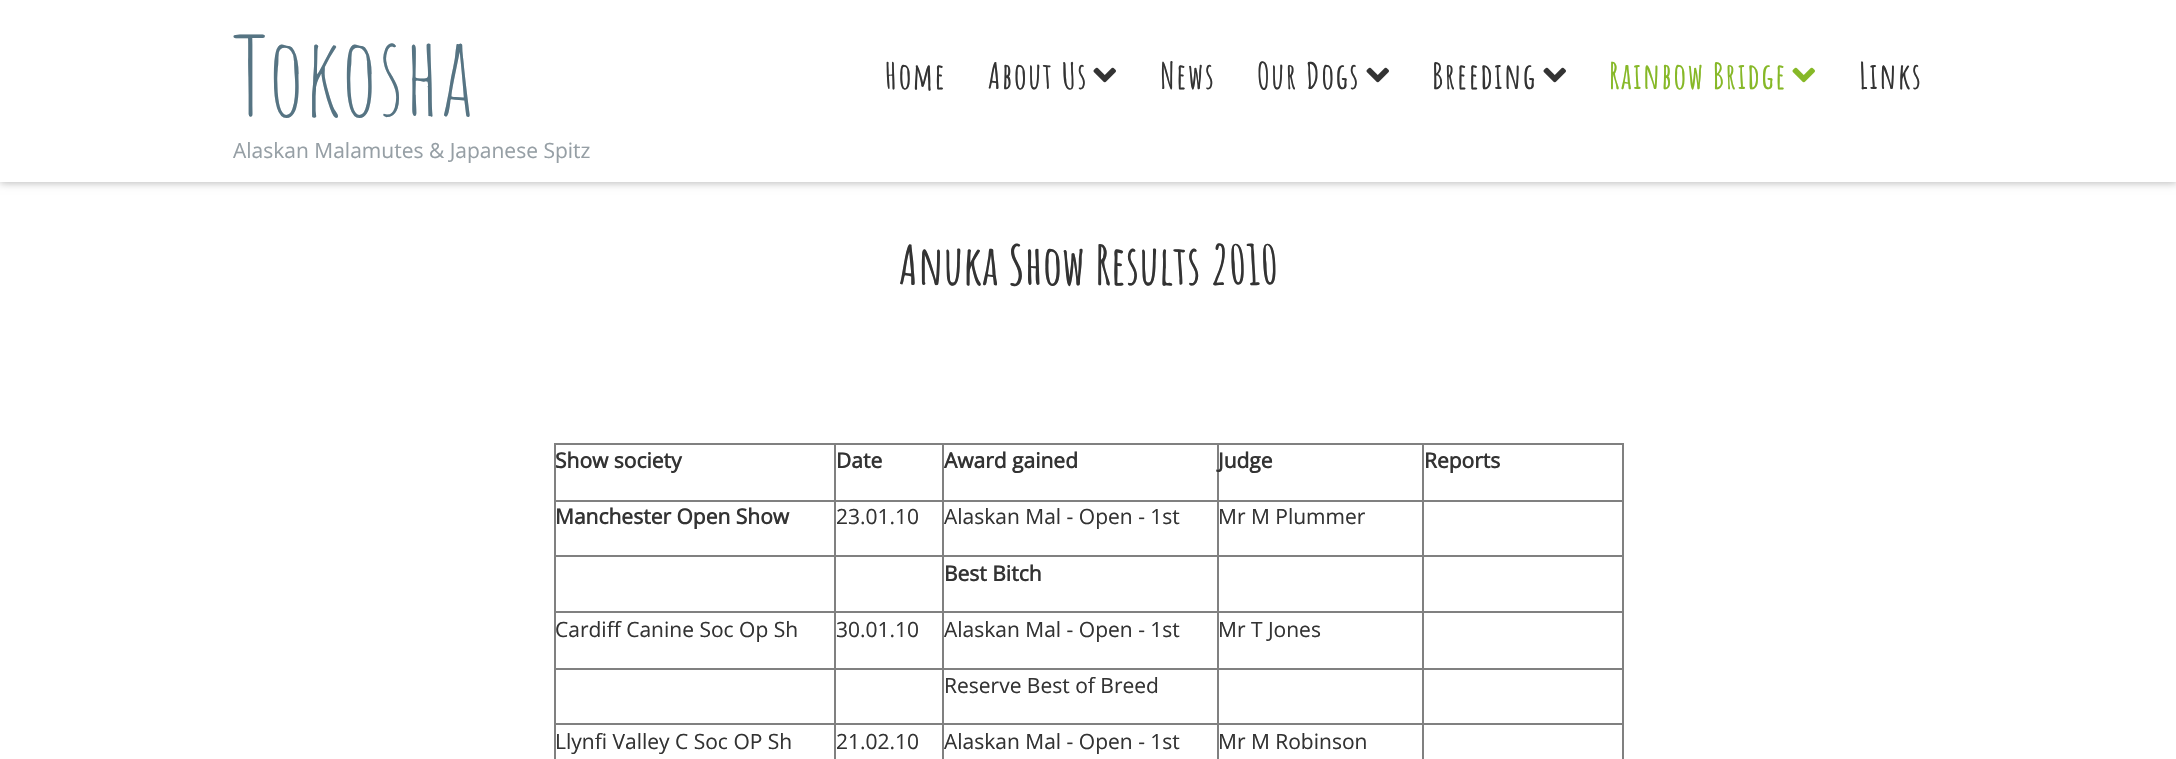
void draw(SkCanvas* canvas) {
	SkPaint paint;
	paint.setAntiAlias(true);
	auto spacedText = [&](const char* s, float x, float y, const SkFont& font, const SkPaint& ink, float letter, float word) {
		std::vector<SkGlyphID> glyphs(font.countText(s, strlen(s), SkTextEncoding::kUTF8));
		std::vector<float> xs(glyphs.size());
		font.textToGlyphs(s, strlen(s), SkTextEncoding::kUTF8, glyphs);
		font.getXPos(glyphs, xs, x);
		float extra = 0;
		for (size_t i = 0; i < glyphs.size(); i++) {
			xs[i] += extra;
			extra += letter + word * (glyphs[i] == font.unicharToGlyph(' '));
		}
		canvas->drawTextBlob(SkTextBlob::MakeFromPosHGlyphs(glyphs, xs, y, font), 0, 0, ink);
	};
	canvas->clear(0xffffffff);
	paint.setColor(0x45000000);
	paint.setMaskFilter(SkMaskFilter::MakeBlur(kNormal_SkBlurStyle, 4));
	canvas->drawRect(SkRect::MakeXYWH(0, 2, 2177, 181), paint);
	paint.setMaskFilter(nullptr);
	paint.setColor(0xffffffff);
	canvas->drawRect(SkRect::MakeXYWH(0, 0, 2176, 182), paint);
	SkFont f1(fontMgr->matchFamilyStyle("Amatic SC", SkFontStyle::Normal()), 108);
	f1.setSubpixel(true);
	paint.setColor(0xff567483);
	canvas->drawString("Tokosha", 233, 116, f1, paint);
	SkFont f2(fontMgr->matchFamilyStyle("Open Sans", SkFontStyle::Normal()), 21);
	f2.setSubpixel(true);
	paint.setColor(0xff969fa5);
	canvas->drawString("Alaskan Malamutes & Japanese Spitz", 233, 158, f2, paint);
	SkFont f3(fontMgr->matchFamilyStyle("Amatic SC", SkFontStyle::Bold()), 36);
	f3.setSubpixel(true);
	paint.setColor(0xff333333);
	spacedText("Home", 885, 89, f3, paint, 1.5, 0);
	spacedText("About Us", 988, 89, f3, paint, 1.5, 0);
	canvas->drawImageRect(SkImages::DeferredFromEncodedData(SkData::MakeFromFileName("img1.png")), SkRect::MakeXYWH(1093, 67, 23, 16), SkSamplingOptions());
	spacedText("News", 1160, 89, f3, paint, 1.5, 0);
	spacedText("Our Dogs", 1257, 89, f3, paint, 1.5, 0);
	canvas->drawImageRect(SkImages::DeferredFromEncodedData(SkData::MakeFromFileName("img1.png")), SkRect::MakeXYWH(1366, 67, 23, 16), SkSamplingOptions());
	spacedText("Breeding", 1432, 89, f3, paint, 1.5, 0);
	canvas->drawImageRect(SkImages::DeferredFromEncodedData(SkData::MakeFromFileName("img1.png")), SkRect::MakeXYWH(1543, 67, 23, 16), SkSamplingOptions());
	paint.setColor(0xff86b827);
	spacedText("Rainbow Bridge", 1609, 89, f3, paint, 1.5, 0);
	canvas->drawImageRect(SkImages::DeferredFromEncodedData(SkData::MakeFromFileName("img2.png")), SkRect::MakeXYWH(1792, 67, 23, 16), SkSamplingOptions());
	paint.setColor(0xff333333);
	spacedText("Links", 1859, 89, f3, paint, 1.5, 0);
	SkFont f4(fontMgr->matchFamilyStyle("Amatic SC", SkFontStyle::Bold()), 54);
	f4.setSubpixel(true);
	canvas->drawString("Anuka Show Results 2010", 899, 285, f4, paint);
	paint.setColor(0xff808080);
	canvas->drawRect(SkRect::MakeXYWH(554, 443, 1069, 2), paint);
	canvas->drawRect(SkRect::MakeXYWH(1622, 443, 2, 316), paint);
	canvas->drawRect(SkRect::MakeXYWH(554, 443, 2, 316), paint);
	SkFont f5(fontMgr->matchFamilyStyle("Open Sans", SkFontStyle::Bold()), 21);
	f5.setSubpixel(true);
	paint.setColor(0xff333333);
	canvas->drawString("Show society", 555, 468, f5, paint);
	paint.setColor(0xff808080);
	canvas->drawRect(SkRect::MakeXYWH(1422, 500, 201, 2), paint);
	canvas->drawRect(SkRect::MakeXYWH(1422, 555, 201, 2), paint);
	canvas->drawRect(SkRect::MakeXYWH(1422, 611, 201, 2), paint);
	canvas->drawRect(SkRect::MakeXYWH(1422, 668, 201, 2), paint);
	canvas->drawRect(SkRect::MakeXYWH(1422, 723, 201, 2), paint);
	canvas->drawRect(SkRect::MakeXYWH(1422, 723, 2, 36), paint);
	canvas->drawRect(SkRect::MakeXYWH(1217, 723, 207, 2), paint);
	canvas->drawRect(SkRect::MakeXYWH(1422, 668, 2, 57), paint);
	canvas->drawRect(SkRect::MakeXYWH(1217, 668, 207, 2), paint);
	canvas->drawRect(SkRect::MakeXYWH(1422, 611, 2, 58), paint);
	canvas->drawRect(SkRect::MakeXYWH(1217, 611, 207, 2), paint);
	canvas->drawRect(SkRect::MakeXYWH(1422, 555, 2, 57), paint);
	canvas->drawRect(SkRect::MakeXYWH(1217, 555, 207, 2), paint);
	canvas->drawRect(SkRect::MakeXYWH(1422, 500, 2, 57), paint);
	canvas->drawRect(SkRect::MakeXYWH(1217, 500, 207, 2), paint);
	canvas->drawRect(SkRect::MakeXYWH(1217, 723, 2, 36), paint);
	canvas->drawRect(SkRect::MakeXYWH(942, 723, 276, 2), paint);
	canvas->drawRect(SkRect::MakeXYWH(1217, 668, 2, 57), paint);
	canvas->drawRect(SkRect::MakeXYWH(942, 668, 276, 2), paint);
	canvas->drawRect(SkRect::MakeXYWH(1217, 611, 2, 58), paint);
	canvas->drawRect(SkRect::MakeXYWH(942, 611, 276, 2), paint);
	canvas->drawRect(SkRect::MakeXYWH(1217, 555, 2, 57), paint);
	canvas->drawRect(SkRect::MakeXYWH(942, 555, 276, 2), paint);
	canvas->drawRect(SkRect::MakeXYWH(1217, 500, 2, 57), paint);
	canvas->drawRect(SkRect::MakeXYWH(942, 500, 276, 2), paint);
	canvas->drawRect(SkRect::MakeXYWH(942, 723, 2, 36), paint);
	canvas->drawRect(SkRect::MakeXYWH(834, 723, 110, 2), paint);
	canvas->drawRect(SkRect::MakeXYWH(942, 668, 2, 57), paint);
	canvas->drawRect(SkRect::MakeXYWH(834, 668, 110, 2), paint);
	canvas->drawRect(SkRect::MakeXYWH(942, 611, 2, 58), paint);
	canvas->drawRect(SkRect::MakeXYWH(834, 611, 110, 2), paint);
	canvas->drawRect(SkRect::MakeXYWH(942, 555, 2, 57), paint);
	canvas->drawRect(SkRect::MakeXYWH(834, 555, 110, 2), paint);
	canvas->drawRect(SkRect::MakeXYWH(942, 500, 2, 57), paint);
	canvas->drawRect(SkRect::MakeXYWH(834, 500, 110, 2), paint);
	canvas->drawRect(SkRect::MakeXYWH(834, 723, 2, 36), paint);
	canvas->drawRect(SkRect::MakeXYWH(554, 723, 282, 2), paint);
	canvas->drawRect(SkRect::MakeXYWH(834, 668, 2, 57), paint);
	canvas->drawRect(SkRect::MakeXYWH(554, 668, 282, 2), paint);
	canvas->drawRect(SkRect::MakeXYWH(834, 611, 2, 58), paint);
	canvas->drawRect(SkRect::MakeXYWH(554, 611, 282, 2), paint);
	canvas->drawRect(SkRect::MakeXYWH(834, 555, 2, 57), paint);
	canvas->drawRect(SkRect::MakeXYWH(554, 555, 282, 2), paint);
	canvas->drawRect(SkRect::MakeXYWH(834, 500, 2, 57), paint);
	canvas->drawRect(SkRect::MakeXYWH(554, 500, 282, 2), paint);
	canvas->drawRect(SkRect::MakeXYWH(834, 443, 2, 58), paint);
	paint.setColor(0xff333333);
	canvas->drawString("Date", 836, 468, f5, paint);
	paint.setColor(0xff808080);
	canvas->drawRect(SkRect::MakeXYWH(942, 443, 2, 58), paint);
	paint.setColor(0xff333333);
	canvas->drawString("Award gained", 944, 468, f5, paint);
	paint.setColor(0xff808080);
	canvas->drawRect(SkRect::MakeXYWH(1217, 443, 2, 58), paint);
	paint.setColor(0xff333333);
	canvas->drawString("Judge", 1218, 468, f5, paint);
	paint.setColor(0xff808080);
	canvas->drawRect(SkRect::MakeXYWH(1422, 443, 2, 58), paint);
	paint.setColor(0xff333333);
	canvas->drawString("Reports", 1424, 468, f5, paint);
	canvas->drawString("Manchester Open Show", 555, 524, f5, paint);
	canvas->drawString("23.01.10", 836, 524, f2, paint);
	canvas->drawString("Alaskan Mal - Open - 1st", 944, 524, f2, paint);
	canvas->drawString("Mr M Plummer", 1218, 524, f2, paint);
	canvas->drawString("Best Bitch", 944, 581, f5, paint);
	canvas->drawString("Cardiff Canine Soc Op Sh", 555, 637, f2, paint);
	canvas->drawString("30.01.10", 836, 637, f2, paint);
	canvas->drawString("Alaskan Mal - Open - 1st", 944, 637, f2, paint);
	canvas->drawString("Mr T Jones", 1218, 637, f2, paint);
	canvas->drawString("Reserve Best of Breed", 944, 693, f2, paint);
	canvas->drawString("Llynfi Valley C Soc OP Sh", 555, 749, f2, paint);
	canvas->drawString("21.02.10", 836, 749, f2, paint);
	canvas->drawString("Alaskan Mal - Open - 1st", 944, 749, f2, paint);
	canvas->drawString("Mr M Robinson", 1218, 749, f2, paint);
}
